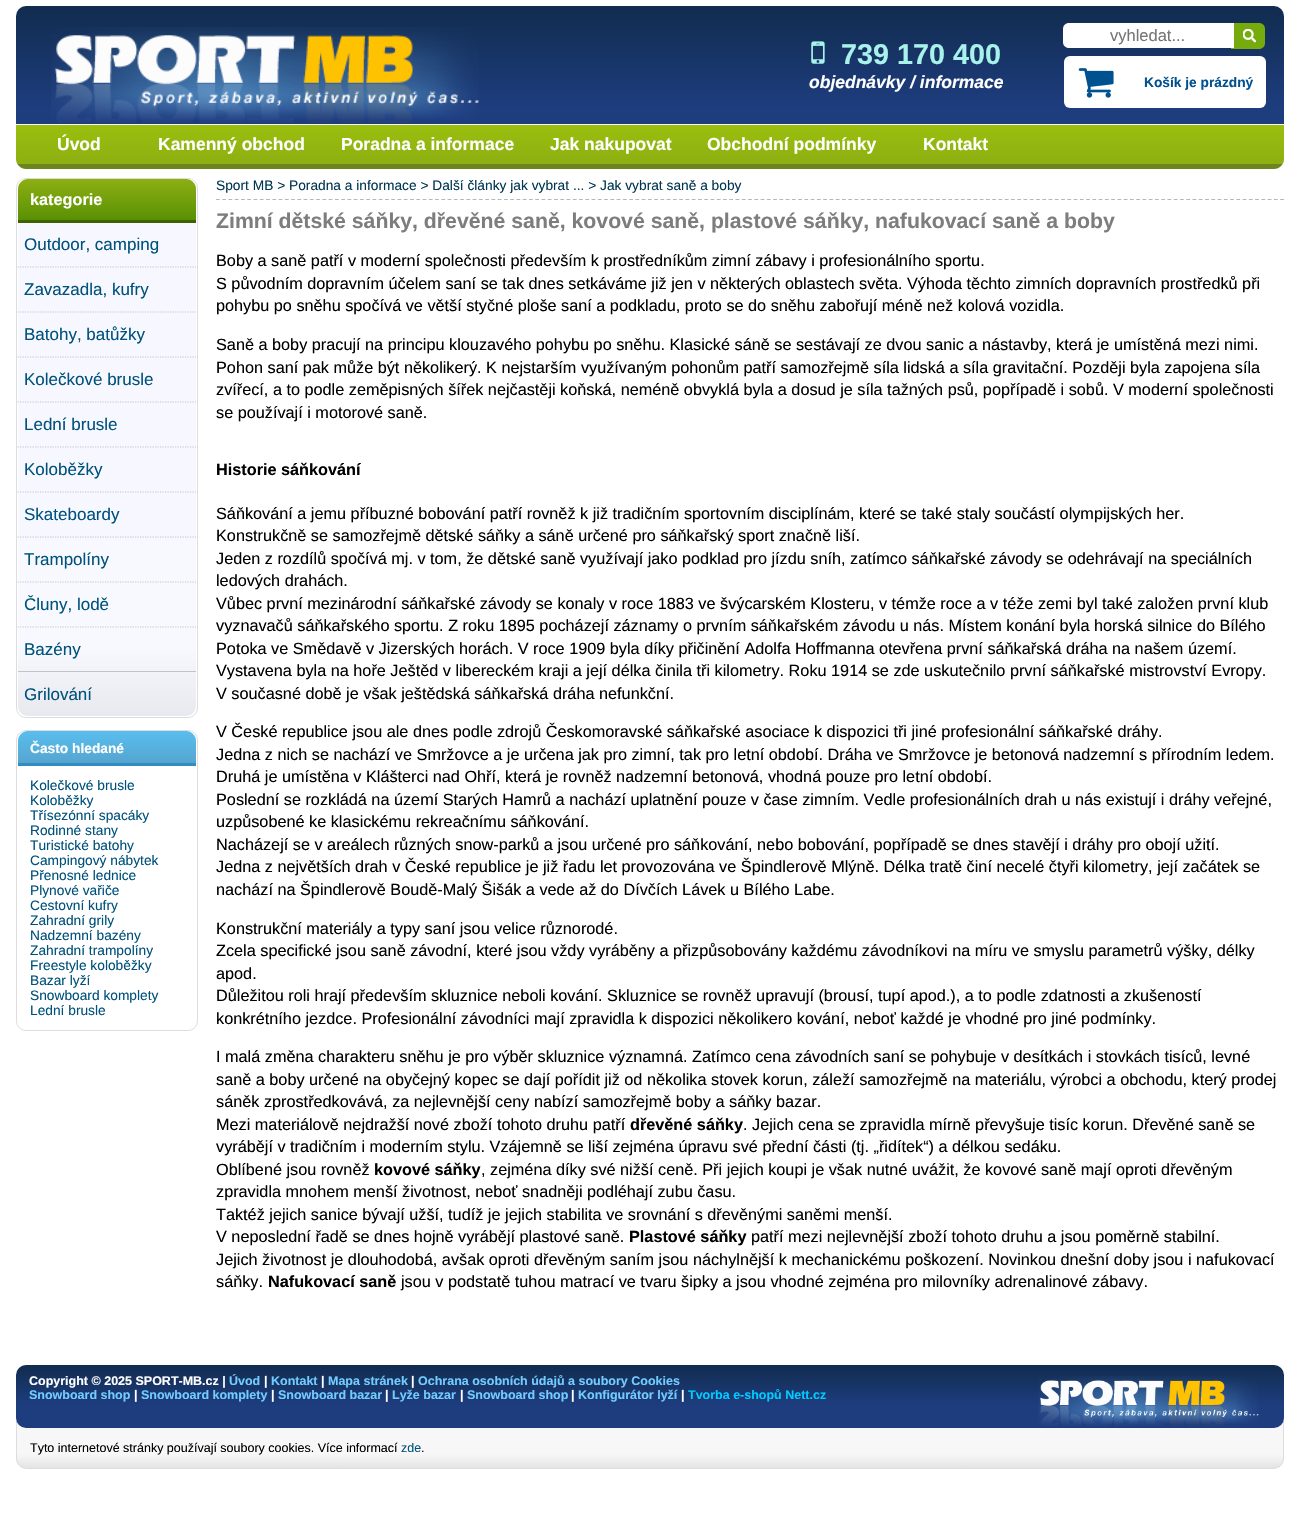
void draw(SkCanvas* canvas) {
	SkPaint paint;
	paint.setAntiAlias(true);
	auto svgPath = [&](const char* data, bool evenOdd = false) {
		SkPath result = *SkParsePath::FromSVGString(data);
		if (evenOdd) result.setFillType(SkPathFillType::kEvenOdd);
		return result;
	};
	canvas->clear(0xffffffff);
	{
		const SkColor colors[] = {0xff112c4f, 0xff1e3d7f};
		const float stops[] = {0, 0.65};
		const SkPoint ends[] = {{650, 6.2}, {650, 165}};
		paint.setShader(SkGradientShader::MakeLinear(ends, colors, stops, 2, SkTileMode::kClamp));
		paint.setAlpha(255);
	}
	canvas->drawRoundRect(SkRect::MakeXYWH(16, 6, 1268, 159), 10, 10, paint);
	canvas->drawImageRect(SkImages::DeferredFromEncodedData(SkData::MakeFromFileName("img1.png")), SkRect::MakeXYWH(51, 27, 428, 96), SkSamplingOptions());
	paint.setShader(nullptr);
	paint.setColor(0xff75ab0d);
	canvas->drawPath(svgPath("M1231 23H1259C1262.5 23 1265 25.5 1265 29V43C1265 46.5 1262.5 49 1259 49H1231Z"), paint);
	paint.setColor(0xffffffff);
	canvas->drawPath(svgPath("M1069 23H1234V48H1069C1065.5 48 1063 45.5 1063 42V29C1063 25.5 1065.5 23 1069 23Z"), paint);
	SkFont f1(fontMgr->matchFamilyStyle("Liberation Sans", SkFontStyle::Normal()), 16.5);
	f1.setSubpixel(true);
	paint.setColor(0xff757575);
	canvas->drawString("vyhledat...", 1110, 41, f1, paint);
	canvas->drawImageRect(SkImages::DeferredFromEncodedData(SkData::MakeFromFileName("img2.png")), SkRect::MakeXYWH(1243, 29, 13, 14), SkSamplingOptions());
	canvas->drawImageRect(SkImages::DeferredFromEncodedData(SkData::MakeFromFileName("img3.png")), SkRect::MakeXYWH(811, 41, 14, 23), SkSamplingOptions());
	SkFont f2(fontMgr->matchFamilyStyle("Liberation Sans", SkFontStyle::Bold()), 28.75);
	f2.setSubpixel(true);
	paint.setColor(0xffa9f1eb);
	canvas->drawString("739 170 400", 841, 64, f2, paint);
	SkFont f3(fontMgr->matchFamilyStyle("Liberation Sans", SkFontStyle::BoldItalic()), 17.5);
	f3.setSubpixel(true);
	paint.setColor(0xffffffff);
	canvas->drawString("objednávky / informace", 809, 88, f3, paint);
	canvas->drawRoundRect(SkRect::MakeXYWH(1064, 56, 202, 52), 6, 6, paint);
	canvas->drawImageRect(SkImages::DeferredFromEncodedData(SkData::MakeFromFileName("img4.png")), SkRect::MakeXYWH(1078, 68, 36, 30), SkSamplingOptions());
	SkFont f4(fontMgr->matchFamilyStyle("Liberation Sans", SkFontStyle::Bold()), 13.75);
	f4.setSubpixel(true);
	paint.setColor(0xff00518f);
	canvas->drawString("Košík je prázdný", 1144, 87, f4, paint);
	{
		const SkColor colors[] = {0xff9abf0d, 0xff8daf12, 0xff6c851f};
		const float stops[] = {0, 0.88, 0.88};
		const SkPoint ends[] = {{650, 125}, {650, 169}};
		paint.setShader(SkGradientShader::MakeLinear(ends, colors, stops, 3, SkTileMode::kClamp));
		paint.setAlpha(255);
	}
	canvas->drawPath(svgPath("M16 125H1284V159C1284 164.5 1279.5 169 1274 169H26C20.5 169 16 164.5 16 159Z"), paint);
	paint.setShader(nullptr);
	paint.setColor(0xffffffff);
	canvas->drawRect(SkRect::MakeXYWH(16, 124, 1268, 1), paint);
	SkFont f5(fontMgr->matchFamilyStyle("Liberation Sans", SkFontStyle::Bold()), 17.5);
	f5.setSubpixel(true);
	canvas->drawString("Úvod", 57, 150, f5, paint);
	canvas->drawString("Kamenný obchod", 158, 150, f5, paint);
	canvas->drawString("Poradna a informace", 341, 150, f5, paint);
	canvas->drawString("Jak nakupovat", 550, 150, f5, paint);
	canvas->drawString("Obchodní podmínky", 707, 150, f5, paint);
	canvas->drawString("Kontakt", 923, 150, f5, paint);
	paint.setStroke(true);
	paint.setStrokeWidth(1);
	paint.setColor(0xffdddddd);
	canvas->drawRoundRect(SkRect::MakeXYWH(16.5, 178.5, 181, 539), 9.5, 9.5, paint);
	paint.setStroke(false);
	{
		const SkColor colors[] = {0xff8daf12, 0xff599105};
		const float stops[] = {0, 1};
		const SkPoint ends[] = {{107, 179}, {107, 220}};
		paint.setShader(SkGradientShader::MakeLinear(ends, colors, stops, 2, SkTileMode::kClamp));
		paint.setAlpha(255);
	}
	canvas->drawPath(svgPath("M28 179H186C191.5 179 196 183.5 196 189V220H18V189C18 183.5 22.5 179 28 179Z"), paint);
	paint.setShader(nullptr);
	paint.setColor(0xff3e6102);
	canvas->drawRect(SkRect::MakeXYWH(18, 220, 178, 3), paint);
	SkFont f6(fontMgr->matchFamilyStyle("Liberation Sans", SkFontStyle::Bold()), 16.25);
	f6.setSubpixel(true);
	paint.setColor(0xffffffff);
	canvas->drawString("kategorie", 30, 205, f6, paint);
	{
		const SkColor colors[] = {0xfff7f7ff, 0xfff7f9ff, 0xffe8e9ef};
		const float stops[] = {0, 0.86, 1};
		const SkPoint ends[] = {{107, 223}, {107, 716}};
		paint.setShader(SkGradientShader::MakeLinear(ends, colors, stops, 3, SkTileMode::kClamp));
		paint.setAlpha(255);
	}
	canvas->drawPath(svgPath("M18 223H196V706C196 711.5 191.5 716 186 716H28C22.5 716 18 711.5 18 706Z"), paint);
	SkFont f7(fontMgr->matchFamilyStyle("Liberation Sans", SkFontStyle::Normal()), 17);
	f7.setSubpixel(true);
	paint.setShader(nullptr);
	paint.setColor(0xff00527c);
	canvas->drawString("Outdoor, camping", 24, 250, f7, paint);
	paint.setStroke(true);
	paint.setStrokeWidth(1.2);
	paint.setColor(0xffc6c6cc);
	paint.setPathEffect(SkDashPathEffect::Make({{1.25f, 1.25f}}, 0));
	canvas->drawPath(svgPath("M17.5 267H196"), paint);
	paint.setPathEffect(nullptr);
	paint.setStroke(false);
	paint.setColor(0xff00527c);
	canvas->drawString("Zavazadla, kufry", 24, 295, f7, paint);
	paint.setStroke(true);
	paint.setColor(0xffc6c6cc);
	paint.setPathEffect(SkDashPathEffect::Make({{1.25f, 1.25f}}, 0));
	canvas->drawPath(svgPath("M17.5 312H196"), paint);
	paint.setPathEffect(nullptr);
	paint.setStroke(false);
	paint.setColor(0xff00527c);
	canvas->drawString("Batohy, batůžky", 24, 340, f7, paint);
	paint.setStroke(true);
	paint.setColor(0xffc6c6cc);
	paint.setPathEffect(SkDashPathEffect::Make({{1.25f, 1.25f}}, 0));
	canvas->drawPath(svgPath("M17.5 357H196"), paint);
	paint.setPathEffect(nullptr);
	paint.setStroke(false);
	paint.setColor(0xff00527c);
	canvas->drawString("Kolečkové brusle", 24, 385, f7, paint);
	paint.setStroke(true);
	paint.setColor(0xffc6c6cc);
	paint.setPathEffect(SkDashPathEffect::Make({{1.25f, 1.25f}}, 0));
	canvas->drawPath(svgPath("M17.5 402H196"), paint);
	paint.setPathEffect(nullptr);
	paint.setStroke(false);
	paint.setColor(0xff00527c);
	canvas->drawString("Lední brusle", 24, 430, f7, paint);
	paint.setStroke(true);
	paint.setColor(0xffc6c6cc);
	paint.setPathEffect(SkDashPathEffect::Make({{1.25f, 1.25f}}, 0));
	canvas->drawPath(svgPath("M17.5 447H196"), paint);
	paint.setPathEffect(nullptr);
	paint.setStroke(false);
	paint.setColor(0xff00527c);
	canvas->drawString("Koloběžky", 24, 475, f7, paint);
	paint.setStroke(true);
	paint.setColor(0xffc6c6cc);
	paint.setPathEffect(SkDashPathEffect::Make({{1.25f, 1.25f}}, 0));
	canvas->drawPath(svgPath("M17.5 492H196"), paint);
	paint.setPathEffect(nullptr);
	paint.setStroke(false);
	paint.setColor(0xff00527c);
	canvas->drawString("Skateboardy", 24, 520, f7, paint);
	paint.setStroke(true);
	paint.setColor(0xffc6c6cc);
	paint.setPathEffect(SkDashPathEffect::Make({{1.25f, 1.25f}}, 0));
	canvas->drawPath(svgPath("M17.5 537H196"), paint);
	paint.setPathEffect(nullptr);
	paint.setStroke(false);
	paint.setColor(0xff00527c);
	canvas->drawString("Trampolíny", 24, 565, f7, paint);
	paint.setStroke(true);
	paint.setColor(0xffc6c7cc);
	paint.setPathEffect(SkDashPathEffect::Make({{1.25f, 1.25f}}, 0));
	canvas->drawPath(svgPath("M17.5 582H196"), paint);
	paint.setPathEffect(nullptr);
	paint.setStroke(false);
	paint.setColor(0xff00527c);
	canvas->drawString("Čluny, lodě", 24, 610, f7, paint);
	paint.setStroke(true);
	paint.setColor(0xffc6c7cc);
	paint.setPathEffect(SkDashPathEffect::Make({{1.25f, 1.25f}}, 0));
	canvas->drawPath(svgPath("M17.5 627H196"), paint);
	paint.setPathEffect(nullptr);
	paint.setStroke(false);
	paint.setColor(0xff00527c);
	canvas->drawString("Bazény", 24, 655, f7, paint);
	paint.setColor(0xffc2c2c7);
	canvas->drawRect(SkRect::MakeXYWH(18, 671, 178, 1), paint);
	paint.setColor(0xff00527c);
	canvas->drawString("Grilování", 24, 700, f7, paint);
	paint.setStroke(true);
	paint.setStrokeWidth(1);
	paint.setColor(0xffdddddd);
	canvas->drawRoundRect(SkRect::MakeXYWH(16.5, 730.5, 181, 300), 9.5, 9.5, paint);
	paint.setStroke(false);
	{
		const SkColor colors[] = {0xff58beef, 0xff56a5ce};
		const float stops[] = {0, 1};
		const SkPoint ends[] = {{107, 731}, {107, 763}};
		paint.setShader(SkGradientShader::MakeLinear(ends, colors, stops, 2, SkTileMode::kClamp));
		paint.setAlpha(255);
	}
	canvas->drawPath(svgPath("M28 731H186C191.5 731 196 735.5 196 741V763H18V741C18 735.5 22.5 731 28 731Z"), paint);
	paint.setShader(nullptr);
	paint.setColor(0xff2f8dc3);
	canvas->drawRect(SkRect::MakeXYWH(18, 763, 178, 3), paint);
	paint.setColor(0xffffffff);
	canvas->drawString("Často hledané", 30, 753, f4, paint);
	SkFont f8(fontMgr->matchFamilyStyle("Liberation Sans", SkFontStyle::Normal()), 13.75);
	f8.setSubpixel(true);
	paint.setColor(0xff00527c);
	canvas->drawString("Kolečkové brusle", 30, 790, f8, paint);
	canvas->drawString("Koloběžky", 30, 805, f8, paint);
	canvas->drawString("Třísezónní spacáky", 30, 820, f8, paint);
	canvas->drawString("Rodinné stany", 30, 835, f8, paint);
	canvas->drawString("Turistické batohy", 30, 850, f8, paint);
	canvas->drawString("Campingový nábytek", 30, 865, f8, paint);
	canvas->drawString("Přenosné lednice", 30, 880, f8, paint);
	canvas->drawString("Plynové vařiče", 30, 895, f8, paint);
	canvas->drawString("Cestovní kufry", 30, 910, f8, paint);
	canvas->drawString("Zahradní grily", 30, 925, f8, paint);
	canvas->drawString("Nadzemní bazény", 30, 940, f8, paint);
	canvas->drawString("Zahradní trampolíny", 30, 955, f8, paint);
	canvas->drawString("Freestyle koloběžky", 30, 970, f8, paint);
	canvas->drawString("Bazar lyží", 30, 985, f8, paint);
	canvas->drawString("Snowboard komplety", 30, 1000, f8, paint);
	canvas->drawString("Lední brusle", 30, 1015, f8, paint);
	paint.setStroke(true);
	paint.setStrokeWidth(1.2);
	paint.setColor(0xffb5b6b7);
	paint.setPathEffect(SkDashPathEffect::Make({{3.75f, 2.51f}}, 0));
	canvas->drawPath(svgPath("M216 199.5H1284"), paint);
	paint.setPathEffect(nullptr);
	paint.setStroke(false);
	paint.setColor(0xff013752);
	canvas->drawString("Sport MB > Poradna a informace > Další články jak vybrat ... > Jak vybrat saně a boby", 216, 190, f8, paint);
	SkFont f9(fontMgr->matchFamilyStyle("Liberation Sans", SkFontStyle::Bold()), 21.25);
	f9.setSubpixel(true);
	paint.setColor(0xff7d7d7d);
	canvas->drawString("Zimní dětské sáňky, dřevěné saně, kovové saně, plastové sáňky, nafukovací saně a boby", 216, 228, f9, paint);
	SkFont f10(fontMgr->matchFamilyStyle("Liberation Sans", SkFontStyle::Normal()), 16.25);
	f10.setSubpixel(true);
	paint.setColor(0xff000000);
	canvas->drawString("Boby a saně patří v moderní společnosti především k prostředníkům zimní zábavy i profesionálního sportu.", 216, 266, f10, paint);
	canvas->drawString("S původním dopravním účelem saní se tak dnes setkáváme již jen v některých oblastech světa. Výhoda těchto zimních dopravních prostředků při", 216, 289, f10, paint);
	canvas->drawString("pohybu po sněhu spočívá ve větší styčné ploše saní a podkladu, proto se do sněhu zabořují méně než kolová vozidla.", 216, 311, f10, paint);
	canvas->drawString("Saně a boby pracují na principu klouzavého pohybu po sněhu. Klasické sáně se sestávají ze dvou sanic a nástavby, která je umístěná mezi nimi.", 216, 350, f10, paint);
	canvas->drawString("Pohon saní pak může být několikerý. K nejstarším využívaným pohonům patří samozřejmě síla lidská a síla gravitační. Později byla zapojena síla", 216, 373, f10, paint);
	canvas->drawString("zvířecí, a to podle zeměpisných šířek nejčastěji koňská, neméně obvyklá byla a dosud je síla tažných psů, popřípadě i sobů. V moderní společnosti", 216, 395, f10, paint);
	canvas->drawString("se používají i motorové saně.", 216, 418, f10, paint);
	canvas->drawString("Historie sáňkování", 216, 475, f6, paint);
	canvas->drawString("Sáňkování a jemu příbuzné bobování patří rovněž k již tradičním sportovním disciplínám, které se také staly součástí olympijských her.", 216, 519, f10, paint);
	canvas->drawString("Konstrukčně se samozřejmě dětské sáňky a sáně určené pro sáňkařský sport značně liší.", 216, 541, f10, paint);
	canvas->drawString("Jeden z rozdílů spočívá mj. v tom, že dětské saně využívají jako podklad pro jízdu sníh, zatímco sáňkařské závody se odehrávají na speciálních", 216, 564, f10, paint);
	canvas->drawString("ledových drahách.", 216, 586, f10, paint);
	canvas->drawString("Vůbec první mezinárodní sáňkařské závody se konaly v roce 1883 ve švýcarském Klosteru, v témže roce a v téže zemi byl také založen první klub", 216, 609, f10, paint);
	canvas->drawString("vyznavačů sáňkařského sportu. Z roku 1895 pocházejí záznamy o prvním sáňkařském závodu u nás. Místem konání byla horská silnice do Bílého", 216, 631, f10, paint);
	canvas->drawString("Potoka ve Smědavě v Jizerských horách. V roce 1909 byla díky přičinění Adolfa Hoffmanna otevřena první sáňkařská dráha na našem území.", 216, 654, f10, paint);
	canvas->drawString("Vystavena byla na hoře Ještěd v libereckém kraji a její délka činila tři kilometry. Roku 1914 se zde uskutečnilo první sáňkařské mistrovství Evropy.", 216, 676, f10, paint);
	canvas->drawString("V současné době je však ještědská sáňkařská dráha nefunkční.", 216, 699, f10, paint);
	canvas->drawString("V České republice jsou ale dnes podle zdrojů Českomoravské sáňkařské asociace k dispozici tři jiné profesionální sáňkařské dráhy.", 216, 737, f10, paint);
	canvas->drawString("Jedna z nich se nachází ve Smržovce a je určena jak pro zimní, tak pro letní období. Dráha ve Smržovce je betonová nadzemní s přírodním ledem.", 216, 760, f10, paint);
	canvas->drawString("Druhá je umístěna v Klášterci nad Ohří, která je rovněž nadzemní betonová, vhodná pouze pro letní období.", 216, 782, f10, paint);
	canvas->drawString("Poslední se rozkládá na území Starých Hamrů a nachází uplatnění pouze v čase zimním. Vedle profesionálních drah u nás existují i dráhy veřejné,", 216, 805, f10, paint);
	canvas->drawString("uzpůsobené ke klasickému rekreačnímu sáňkování.", 216, 827, f10, paint);
	canvas->drawString("Nacházejí se v areálech různých snow-parků a jsou určené pro sáňkování, nebo bobování, popřípadě se dnes stavějí i dráhy pro obojí užití.", 216, 850, f10, paint);
	canvas->drawString("Jedna z největších drah v České republice je již řadu let provozována ve Špindlerově Mlýně. Délka tratě činí necelé čtyři kilometry, její začátek se", 216, 872, f10, paint);
	canvas->drawString("nachází na Špindlerově Boudě-Malý Šišák a vede až do Dívčích Lávek u Bílého Labe.", 216, 895, f10, paint);
	canvas->drawString("Konstrukční materiály a typy saní jsou velice různorodé.", 216, 934, f10, paint);
	canvas->drawString("Zcela specifické jsou saně závodní, které jsou vždy vyráběny a přizpůsobovány každému závodníkovi na míru ve smyslu parametrů výšky, délky", 216, 956, f10, paint);
	canvas->drawString("apod.", 216, 979, f10, paint);
	canvas->drawString("Důležitou roli hrají především skluznice neboli kování. Skluznice se rovněž upravují (brousí, tupí apod.), a to podle zdatnosti a zkušeností", 216, 1001, f10, paint);
	canvas->drawString("konkrétního jezdce. Profesionální závodníci mají zpravidla k dispozici několikero kování, neboť každé je vhodné pro jiné podmínky.", 216, 1024, f10, paint);
	canvas->drawString("I malá změna charakteru sněhu je pro výběr skluznice významná. Zatímco cena závodních saní se pohybuje v desítkách i stovkách tisíců, levné", 216, 1062, f10, paint);
	canvas->drawString("saně a boby určené na obyčejný kopec se dají pořídit již od několika stovek korun, záleží samozřejmě na materiálu, výrobci a obchodu, který prodej", 216, 1085, f10, paint);
	canvas->drawString("sáněk zprostředkovává, za nejlevnější ceny nabízí samozřejmě boby a sáňky bazar.", 216, 1107, f10, paint);
	canvas->drawString("Mezi materiálově nejdražší nové zboží tohoto druhu patří", 216, 1130, f10, paint);
	canvas->drawString("dřevěné sáňky", 630, 1130, f6, paint);
	canvas->drawString(". Jejich cena se zpravidla mírně převyšuje tisíc korun. Dřevěné saně se", 743, 1130, f10, paint);
	canvas->drawString("vyrábějí v tradičním i moderním stylu. Vzájemně se liší zejména úpravu své přední části (tj. „řidítek“) a délkou sedáku.", 216, 1152, f10, paint);
	canvas->drawString("Oblíbené jsou rovněž", 216, 1175, f10, paint);
	canvas->drawString("kovové sáňky", 374, 1175, f6, paint);
	canvas->drawString(", zejména díky své nižší ceně. Při jejich koupi je však nutné uvážit, že kovové saně mají oproti dřevěným", 481, 1175, f10, paint);
	canvas->drawString("zpravidla mnohem menší životnost, neboť snadněji podléhají zubu času.", 216, 1197, f10, paint);
	canvas->drawString("Taktéž jejich sanice bývají užší, tudíž je jejich stabilita ve srovnání s dřevěnými saněmi menší.", 216, 1220, f10, paint);
	canvas->drawString("V neposlední řadě se dnes hojně vyrábějí plastové saně.", 216, 1242, f10, paint);
	canvas->drawString("Plastové sáňky", 629, 1242, f6, paint);
	canvas->drawString("patří mezi nejlevnější zboží tohoto druhu a jsou poměrně stabilní.", 751, 1242, f10, paint);
	canvas->drawString("Jejich životnost je dlouhodobá, avšak oproti dřevěným saním jsou náchylnější k mechanickému poškození. Novinkou dnešní doby jsou i nafukovací", 216, 1265, f10, paint);
	canvas->drawString("sáňky.", 216, 1287, f10, paint);
	canvas->drawString("Nafukovací saně", 268, 1287, f6, paint);
	canvas->drawString("jsou v podstatě tuhou matrací ve tvaru šipky a jsou vhodné zejména pro milovníky adrenalinové zábavy.", 401, 1287, f10, paint);
	canvas->save();
	canvas->clipPath(svgPath("M16 1421H1284V1458C1284 1464 1279 1469 1273 1469H27C21 1469 16 1464 16 1458Z"), true);
	{
		const SkColor colors[] = {0xfff7f7f7, 0xfff7f7f7, 0xffe4e4e4};
		const float stops[] = {0, 0.69, 1};
		const SkPoint ends[] = {{650, 1423}, {650, 1468}};
		paint.setShader(SkGradientShader::MakeLinear(ends, colors, stops, 3, SkTileMode::kClamp));
		paint.setAlpha(255);
	}
	canvas->drawRect(SkRect::MakeXYWH(16, 1423, 1268, 45), paint);
	canvas->restore();
	paint.setStroke(true);
	paint.setStrokeWidth(1);
	paint.setShader(nullptr);
	paint.setColor(0xffdddddd);
	canvas->drawPath(svgPath("M16.5 1421.5H1283.5V1458C1283.5 1464 1279 1468.5 1273 1468.5H27C21 1468.5 16.5 1464 16.5 1458Z"), paint);
	paint.setStroke(false);
	{
		const SkColor colors[] = {0xff112c4f, 0xff1e3d7f};
		const float stops[] = {0, 0.65};
		const SkPoint ends[] = {{650, 1365}, {650, 1428}};
		paint.setShader(SkGradientShader::MakeLinear(ends, colors, stops, 2, SkTileMode::kClamp));
		paint.setAlpha(255);
	}
	canvas->drawRoundRect(SkRect::MakeXYWH(16, 1365, 1268, 63), 10, 10, paint);
	SkFont f11(fontMgr->matchFamilyStyle("Liberation Sans", SkFontStyle::Bold()), 12.5);
	f11.setSubpixel(true);
	paint.setShader(nullptr);
	paint.setColor(0xffffffff);
	canvas->drawString("Copyright © 2025 SPORT-MB.cz |", 29, 1385, f11, paint);
	paint.setColor(0xff72ccff);
	canvas->drawString("Úvod", 229, 1385, f11, paint);
	paint.setColor(0xffffffff);
	canvas->drawString("|", 264, 1385, f11, paint);
	paint.setColor(0xff72ccff);
	canvas->drawString("Kontakt", 271, 1385, f11, paint);
	paint.setColor(0xffffffff);
	canvas->drawString("|", 321, 1385, f11, paint);
	paint.setColor(0xff72ccff);
	canvas->drawString("Mapa stránek", 328, 1385, f11, paint);
	paint.setColor(0xffffffff);
	canvas->drawString("|", 411, 1385, f11, paint);
	paint.setColor(0xff72ccff);
	canvas->drawString("Ochrana osobních údajů a soubory Cookies", 418, 1385, f11, paint);
	canvas->drawString("Snowboard shop", 29, 1399, f11, paint);
	paint.setColor(0xffffffff);
	canvas->drawString("|", 134, 1399, f11, paint);
	paint.setColor(0xff72ccff);
	canvas->drawString("Snowboard komplety", 141, 1399, f11, paint);
	paint.setColor(0xffffffff);
	canvas->drawString("|", 271, 1399, f11, paint);
	paint.setColor(0xff72ccff);
	canvas->drawString("Snowboard bazar", 278, 1399, f11, paint);
	paint.setColor(0xffffffff);
	canvas->drawString("|", 385, 1399, f11, paint);
	paint.setColor(0xff72ccff);
	canvas->drawString("Lyže bazar", 392, 1399, f11, paint);
	paint.setColor(0xffffffff);
	canvas->drawString("|", 460, 1399, f11, paint);
	paint.setColor(0xff72ccff);
	canvas->drawString("Snowboard shop", 467, 1399, f11, paint);
	paint.setColor(0xffffffff);
	canvas->drawString("|", 571, 1399, f11, paint);
	paint.setColor(0xff72ccff);
	canvas->drawString("Konfigurátor lyží", 578, 1399, f11, paint);
	paint.setColor(0xffffffff);
	canvas->drawString("|", 681, 1399, f11, paint);
	paint.setColor(0xff00ccff);
	canvas->drawString("Tvorba e-shopů Nett.cz", 688, 1399, f11, paint);
	canvas->drawImageRect(SkImages::DeferredFromEncodedData(SkData::MakeFromFileName("img5.png")), SkRect::MakeXYWH(1038, 1376, 221, 50), SkSamplingOptions());
	SkFont f12(fontMgr->matchFamilyStyle("Liberation Sans", SkFontStyle::Normal()), 12.5);
	f12.setSubpixel(true);
	paint.setColor(0xff000000);
	canvas->drawString("Tyto internetové stránky používají soubory cookies. Více informací", 30, 1452, f12, paint);
	paint.setColor(0xff00527c);
	canvas->drawString("zde", 401, 1452, f12, paint);
	paint.setColor(0xff000000);
	canvas->drawString(".", 421, 1452, f12, paint);
}
